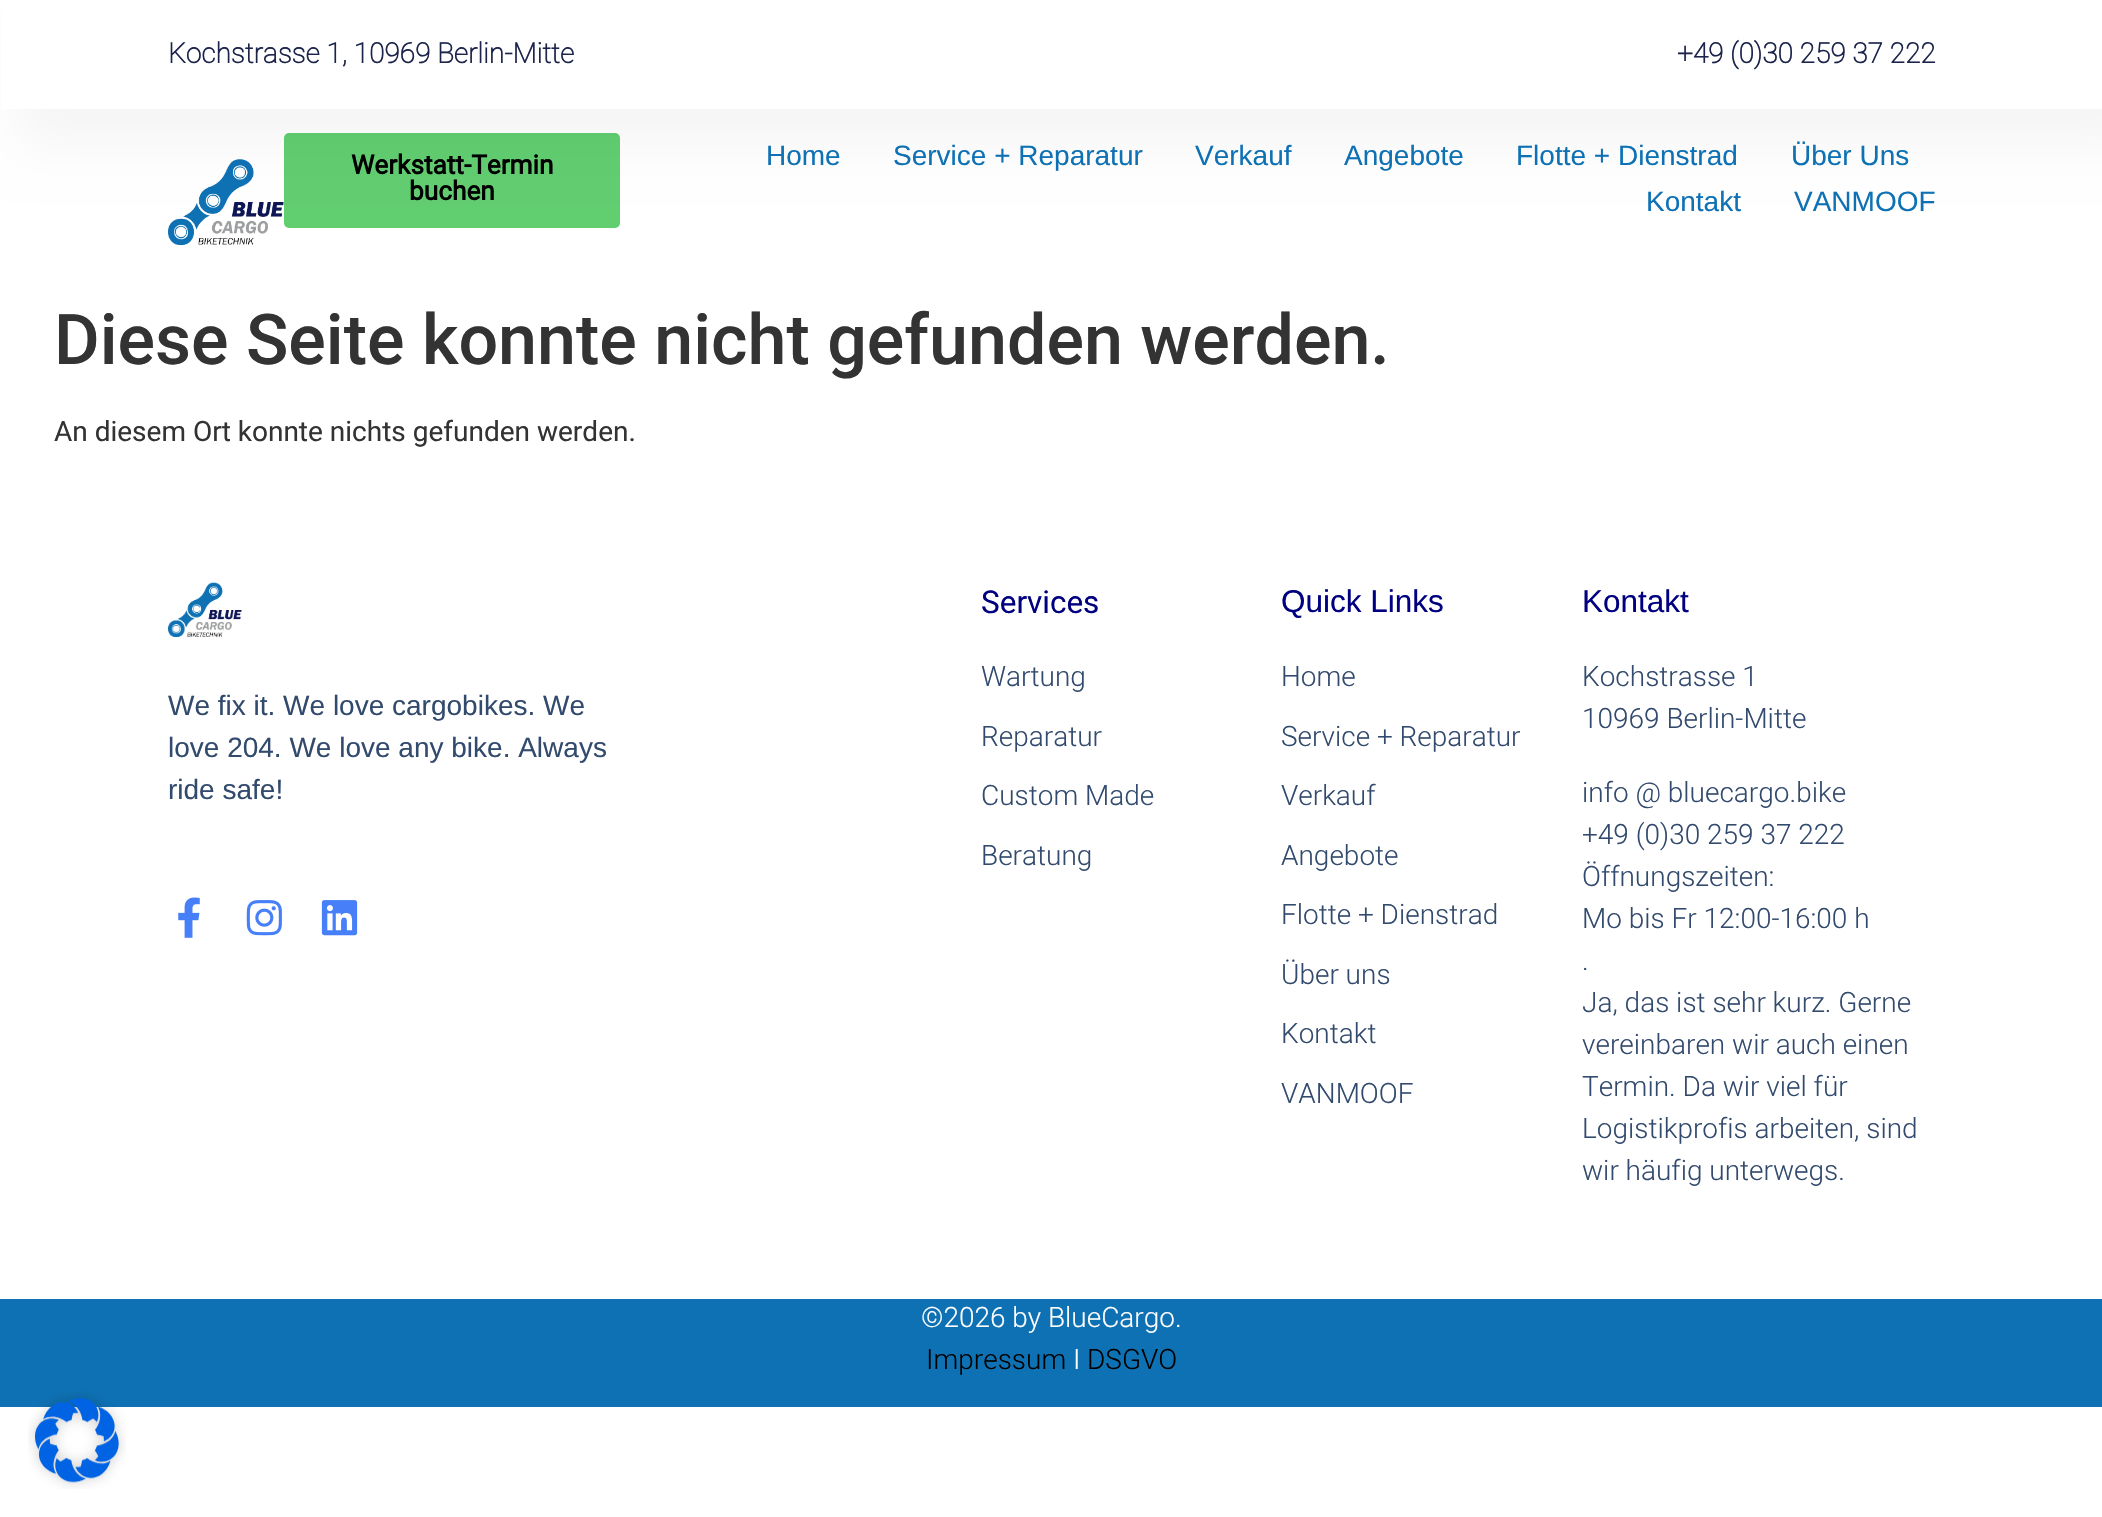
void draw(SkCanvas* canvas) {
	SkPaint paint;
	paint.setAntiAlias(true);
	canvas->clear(0xffffffff);
	canvas->drawImageRect(SkImages::DeferredFromEncodedData(SkData::MakeFromFileName("img1.png")), SkRect::MakeXYWH(168, 159, 116, 86), SkSamplingOptions());
	paint.setColor(0xff61ce70);
	canvas->drawRoundRect(SkRect::MakeXYWH(284, 133, 336, 95), 5, 5, paint);
	paint.setColor(0x0a000000);
	paint.setMaskFilter(SkMaskFilter::MakeBlur(kNormal_SkBlurStyle, 26));
	canvas->drawRect(SkRect::MakeXYWH(18, 18, 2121, 126), paint);
	paint.setMaskFilter(nullptr);
	paint.setColor(0xffffffff);
	canvas->drawRect(SkRect::MakeXYWH(1, 0, 2101, 109), paint);
	SkFont f1(fontMgr->matchFamilyStyle("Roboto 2", SkFontStyle::Bold()), 28);
	f1.setSubpixel(true);
	paint.setColor(0xff1c244b);
	canvas->drawString("Kochstrasse 1, 10969 Berlin-Mitte", 168, 63, f1, paint);
	canvas->drawString("+49 (0)30 259 37 222", 1677, 63, f1, paint);
	SkFont f2(fontMgr->matchFamilyStyle("Roboto", SkFontStyle::Bold()), 26.25);
	f2.setSubpixel(true);
	paint.setColor(0xff000000);
	canvas->drawString("Werkstatt-Termin", 351, 174, f2, paint);
	canvas->drawString("buchen", 409, 200, f2, paint);
	SkFont f3(fontMgr->matchFamilyStyle("Liberation Sans", SkFontStyle::Normal()), 28);
	f3.setSubpixel(true);
	paint.setColor(0xff0e71b4);
	canvas->drawString("Home", 766, 165, f3, paint);
	canvas->drawString("Service + Reparatur", 893, 165, f3, paint);
	canvas->drawString("Verkauf", 1195, 165, f3, paint);
	canvas->drawString("Angebote", 1344, 165, f3, paint);
	canvas->drawString("Flotte + Dienstrad", 1516, 165, f3, paint);
	canvas->drawString("Über Uns", 1791, 165, f3, paint);
	canvas->drawString("Kontakt", 1646, 211, f3, paint);
	canvas->drawString("VANMOOF", 1794, 211, f3, paint);
	SkFont f4(fontMgr->matchFamilyStyle("Roboto", SkFontStyle(500, SkFontStyle::kNormal_Width, SkFontStyle::kUpright_Slant)), 70);
	f4.setSubpixel(true);
	paint.setColor(0xff333333);
	canvas->drawString("Diese Seite konnte nicht gefunden werden.", 54, 364, f4, paint);
	SkFont f5(fontMgr->matchFamilyStyle("Roboto", SkFontStyle::Normal()), 28);
	f5.setSubpixel(true);
	canvas->drawString("An diesem Ort konnte nichts gefunden werden.", 54, 441, f5, paint);
	canvas->drawImageRect(SkImages::DeferredFromEncodedData(SkData::MakeFromFileName("img2.png")), SkRect::MakeXYWH(168, 582, 74, 55), SkSamplingOptions());
	paint.setColor(0xff324a6d);
	canvas->drawString("We fix it. We love cargobikes. We", 168, 715, f3, paint);
	canvas->drawString("love 204. We love any bike. Always", 168, 757, f3, paint);
	canvas->drawString("ride safe!", 168, 799, f3, paint);
	canvas->drawImageRect(SkImages::DeferredFromEncodedData(SkData::MakeFromFileName("img3.png")), SkRect::MakeXYWH(178, 897, 22, 41), SkSamplingOptions());
	canvas->drawImageRect(SkImages::DeferredFromEncodedData(SkData::MakeFromFileName("img4.png")), SkRect::MakeXYWH(246, 900, 36, 36), SkSamplingOptions());
	canvas->drawImageRect(SkImages::DeferredFromEncodedData(SkData::MakeFromFileName("img5.png")), SkRect::MakeXYWH(321, 900, 37, 36), SkSamplingOptions());
	SkFont f6(fontMgr->matchFamilyStyle("Roboto 2", SkFontStyle::Normal()), 31.5);
	f6.setSubpixel(true);
	paint.setColor(0xff000080);
	canvas->drawString("Services", 981, 613, f6, paint);
	SkFont f7(fontMgr->matchFamilyStyle("Roboto", SkFontStyle(300, SkFontStyle::kNormal_Width, SkFontStyle::kUpright_Slant)), 28);
	f7.setSubpixel(true);
	paint.setColor(0xff324a6d);
	canvas->drawString("Wartung", 981, 686, f7, paint);
	canvas->drawString("Reparatur", 981, 746, f7, paint);
	canvas->drawString("Custom Made", 981, 805, f7, paint);
	canvas->drawString("Beratung", 981, 865, f7, paint);
	SkFont f8(fontMgr->matchFamilyStyle("Liberation Sans", SkFontStyle::Normal()), 31.5);
	f8.setSubpixel(true);
	paint.setColor(0xff000080);
	canvas->drawString("Quick Links", 1281, 612, f8, paint);
	paint.setColor(0xff324a6d);
	canvas->drawString("Home", 1281, 686, f7, paint);
	canvas->drawString("Service + Reparatur", 1281, 746, f7, paint);
	canvas->drawString("Verkauf", 1281, 805, f7, paint);
	canvas->drawString("Angebote", 1281, 865, f7, paint);
	canvas->drawString("Flotte + Dienstrad", 1281, 924, f7, paint);
	canvas->drawString("Über uns", 1281, 984, f7, paint);
	canvas->drawString("Kontakt", 1281, 1043, f7, paint);
	canvas->drawString("VANMOOF", 1281, 1103, f7, paint);
	paint.setColor(0xff000080);
	canvas->drawString("Kontakt", 1582, 612, f8, paint);
	paint.setColor(0xff324a6d);
	canvas->drawString("Kochstrasse 1", 1582, 686, f7, paint);
	canvas->drawString("10969 Berlin-Mitte", 1582, 728, f7, paint);
	canvas->drawString("info @ bluecargo.bike", 1582, 802, f7, paint);
	canvas->drawString("+49 (0)30 259 37 222", 1582, 844, f7, paint);
	canvas->drawString("Öffnungszeiten:", 1582, 886, f7, paint);
	canvas->drawString("Mo bis Fr 12:00-16:00 h", 1582, 928, f7, paint);
	canvas->drawString(".", 1582, 970, f7, paint);
	canvas->drawString("Ja, das ist sehr kurz. Gerne", 1582, 1012, f7, paint);
	canvas->drawString("vereinbaren wir auch einen", 1582, 1054, f7, paint);
	canvas->drawString("Termin. Da wir viel für", 1582, 1096, f7, paint);
	canvas->drawString("Logistikprofis arbeiten, sind", 1582, 1138, f7, paint);
	canvas->drawString("wir häufig unterwegs.", 1582, 1180, f7, paint);
	paint.setColor(0xff0e71b4);
	canvas->drawRect(SkRect::MakeXYWH(0, 1299, 2102, 108), paint);
	paint.setColor(0xffffffff);
	canvas->drawString("©2026 by BlueCargo.", 921, 1327, f7, paint);
	paint.setColor(0xff000000);
	canvas->drawString("Impressum", 926, 1369, f7, paint);
	paint.setColor(0xffffffff);
	canvas->drawString("I", 1073, 1369, f7, paint);
	paint.setColor(0xff000000);
	canvas->drawString("DSGVO", 1087, 1369, f7, paint);
	canvas->drawImageRect(SkImages::DeferredFromEncodedData(SkData::MakeFromFileName("img6.png")), SkRect::MakeXYWH(28, 1391, 98, 98), SkSamplingOptions());
}
